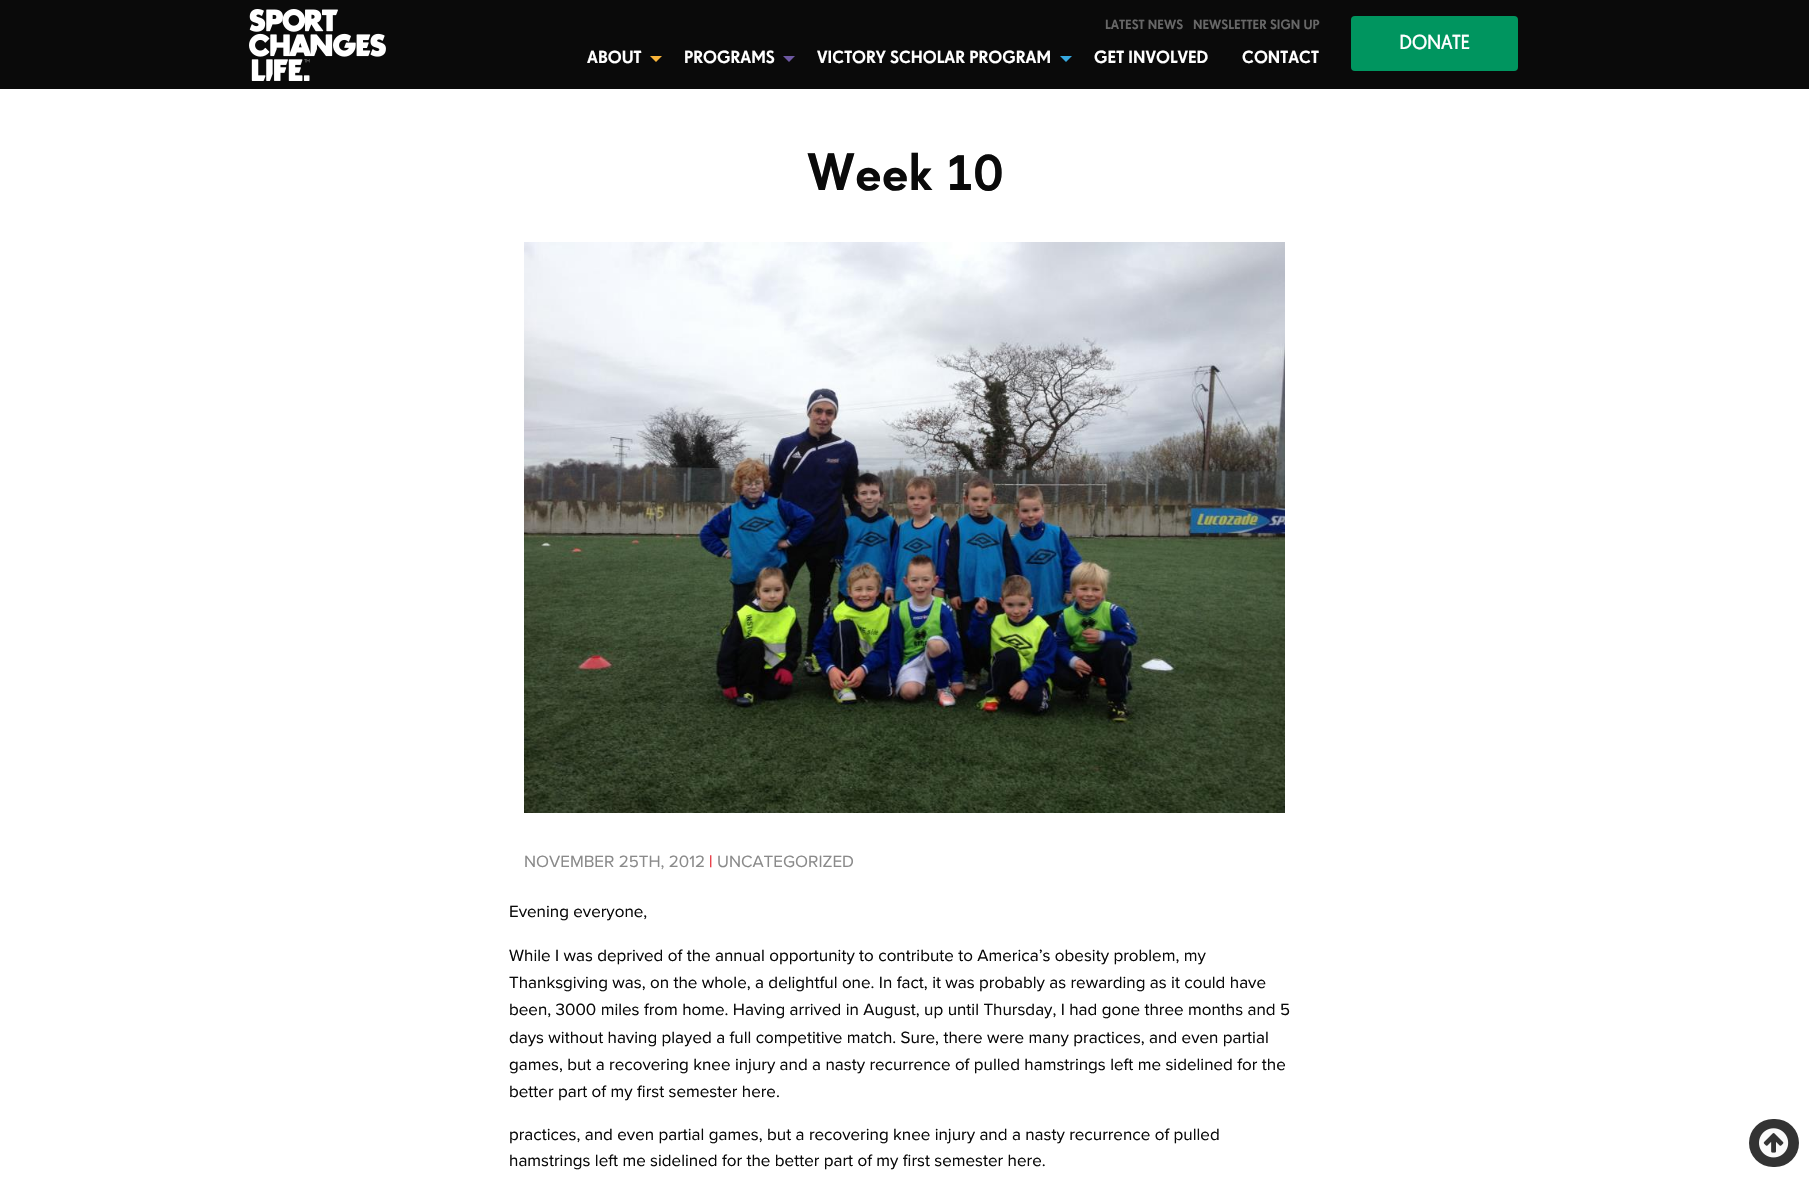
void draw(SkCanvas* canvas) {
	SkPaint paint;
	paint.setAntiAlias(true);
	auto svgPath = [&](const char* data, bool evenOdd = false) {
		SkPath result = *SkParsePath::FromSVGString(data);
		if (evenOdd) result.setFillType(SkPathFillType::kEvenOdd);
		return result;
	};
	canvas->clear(0xffffffff);
	paint.setColor(0xff0a0a0a);
	canvas->drawRect(SkRect::MakeXYWH(0, 0, 1809, 89), paint);
	canvas->drawImageRect(SkImages::DeferredFromEncodedData(SkData::MakeFromFileName("img1.png")), SkRect::MakeXYWH(249, 9, 137, 72), SkSamplingOptions());
	SkFont f1(fontMgr->matchFamilyStyle("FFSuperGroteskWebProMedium", SkFontStyle::Normal()), 13);
	f1.setSubpixel(true);
	paint.setColor(0xff676767);
	canvas->drawString("LATEST NEWS", 1105, 29, f1, paint);
	canvas->drawString("NEWSLETTER SIGN UP", 1193, 29, f1, paint);
	SkFont f2(fontMgr->matchFamilyStyle("FFSuperGroteskWebProMedium", SkFontStyle::Normal()), 17);
	f2.setSubpixel(true);
	paint.setColor(0xffffffff);
	canvas->drawString("ABOUT", 587, 63, f2, paint);
	paint.setColor(0xfffab53a);
	canvas->drawPath(svgPath("M650 56H662L656 62Z"), paint);
	paint.setColor(0xffffffff);
	canvas->drawString("PROGRAMS", 684, 63, f2, paint);
	paint.setColor(0xff6d58a2);
	canvas->drawPath(svgPath("M783 56H795L789 62Z"), paint);
	paint.setColor(0xffffffff);
	canvas->drawString("VICTORY SCHOLAR PROGRAM", 817, 63, f2, paint);
	paint.setColor(0xff36a9e1);
	canvas->drawPath(svgPath("M1060 56H1072L1066 62Z"), paint);
	paint.setColor(0xffffffff);
	canvas->drawString("GET INVOLVED", 1094, 63, f2, paint);
	canvas->drawString("CONTACT", 1242, 63, f2, paint);
	paint.setColor(0xff00955f);
	canvas->drawRoundRect(SkRect::MakeXYWH(1351, 16, 167, 55), 4, 4, paint);
	SkFont f3(fontMgr->matchFamilyStyle("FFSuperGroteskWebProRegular", SkFontStyle::Bold()), 19);
	f3.setSubpixel(true);
	paint.setColor(0xffffffff);
	canvas->drawString("DONATE", 1399, 49, f3, paint);
	SkFont f4(fontMgr->matchFamilyStyle("FFSuperGroteskWebProMedium", SkFontStyle::Normal()), 51);
	f4.setSubpixel(true);
	paint.setColor(0xff0a0a0a);
	canvas->drawString("Week 10", 807, 190, f4, paint);
	canvas->drawImageRect(SkImages::DeferredFromEncodedData(SkData::MakeFromFileName("img2.png")), SkRect::MakeXYWH(524, 242, 761, 571), SkSamplingOptions());
	SkFont f5(fontMgr->matchFamilyStyle("Proxima Nova", SkFontStyle::Normal()), 17);
	f5.setSubpixel(true);
	paint.setColor(0xff8a8a8a);
	canvas->drawString("NOVEMBER 25TH, 2012", 524, 867, f5, paint);
	paint.setColor(0xffe30613);
	canvas->drawString("|", 709, 867, f5, paint);
	paint.setColor(0xff8a8a8a);
	canvas->drawString("UNCATEGORIZED", 717, 867, f5, paint);
	paint.setColor(0xff0a0a0a);
	canvas->drawString("Evening everyone,", 509, 917, f5, paint);
	canvas->drawString("While I was deprived of the annual opportunity to contribute to America’s obesity problem, my", 509, 961, f5, paint);
	canvas->drawString("Thanksgiving was, on the whole, a delightful one. In fact, it was probably as rewarding as it could have", 509, 988, f5, paint);
	canvas->drawString("been, 3000 miles from home. Having arrived in August, up until Thursday, I had gone three months and 5", 509, 1015, f5, paint);
	canvas->drawString("days without having played a full competitive match. Sure, there were many practices, and even partial", 509, 1043, f5, paint);
	canvas->drawString("games, but a recovering knee injury and a nasty recurrence of pulled hamstrings left me sidelined for the", 509, 1070, f5, paint);
	canvas->drawString("better part of my first semester here.", 509, 1097, f5, paint);
	canvas->drawString("practices, and even partial games, but a recovering knee injury and a nasty recurrence of pulled", 509, 1140, f5, paint);
	canvas->drawString("hamstrings left me sidelined for the better part of my first semester here.", 509, 1166, f5, paint);
	paint.setColor(0xff333333);
	canvas->drawRoundRect(SkRect::MakeXYWH(1749, 1119, 50, 48), 24, 24, paint);
	canvas->drawImageRect(SkImages::DeferredFromEncodedData(SkData::MakeFromFileName("img3.png")), SkRect::MakeXYWH(1759, 1128, 30, 30), SkSamplingOptions());
}
